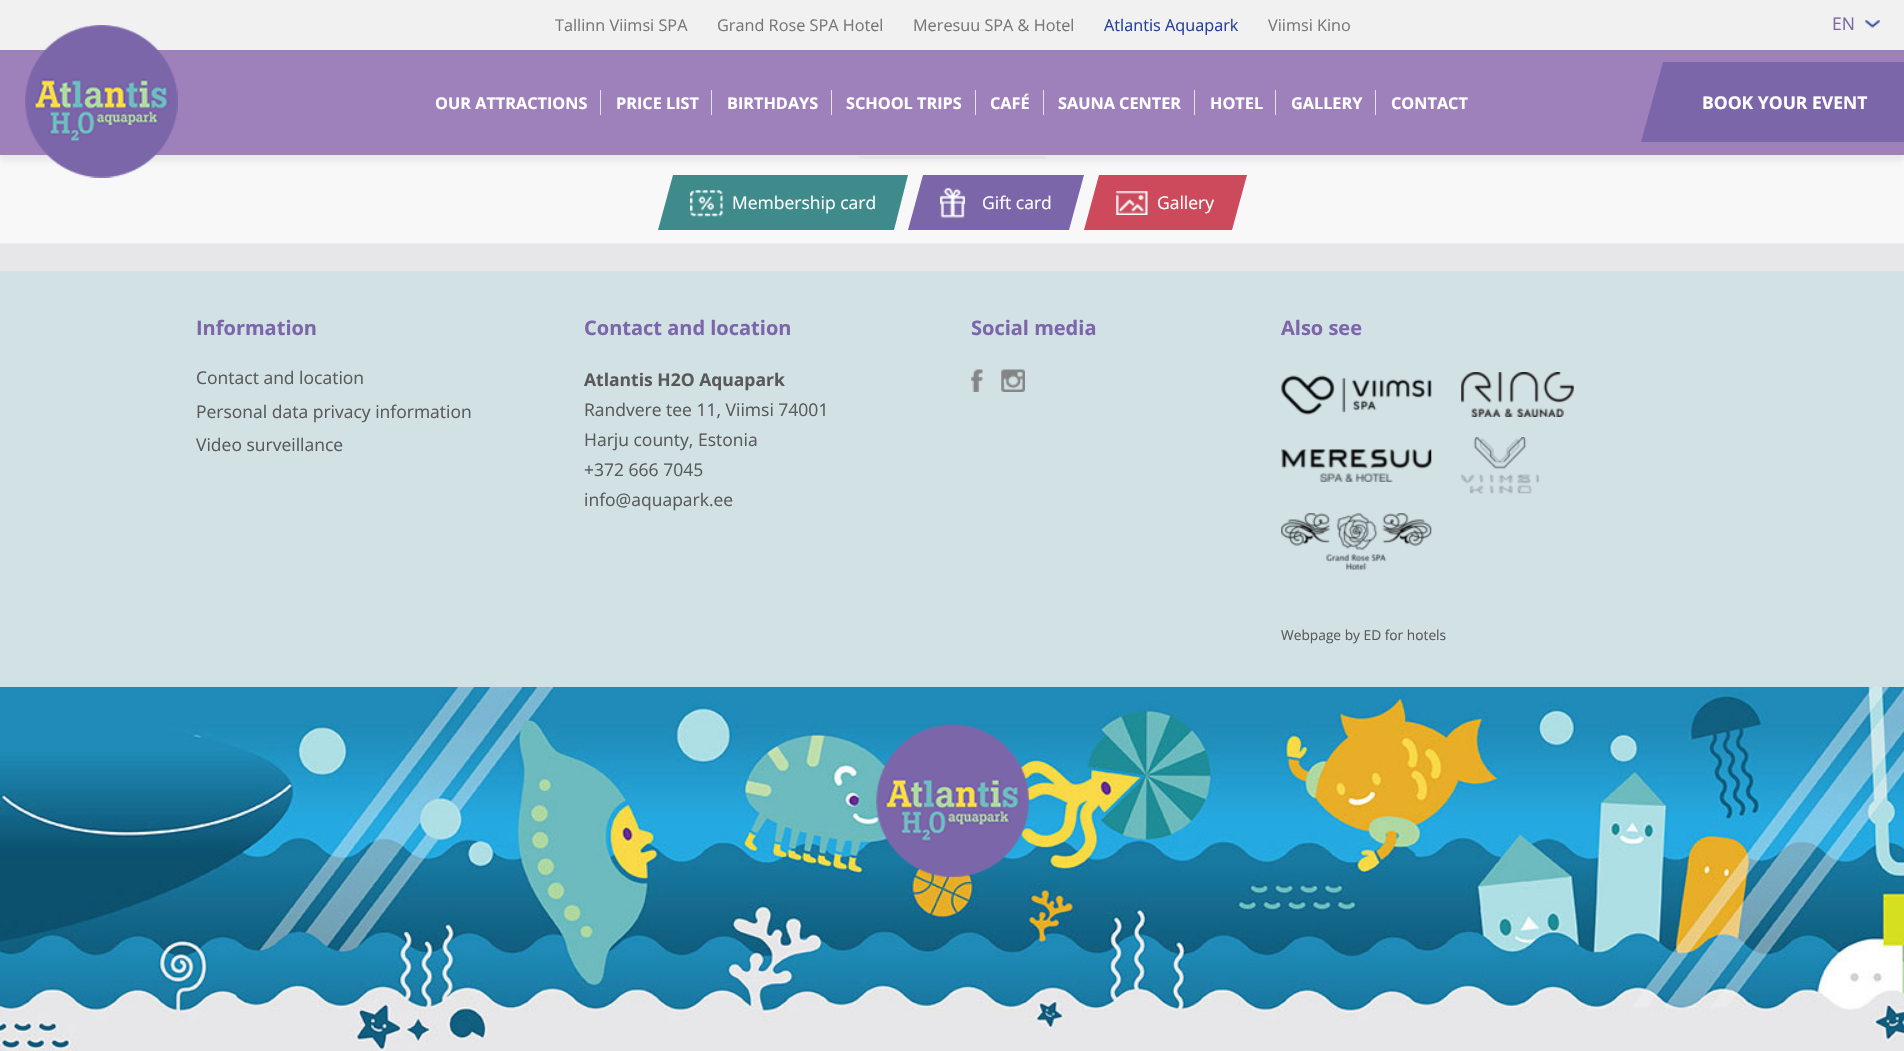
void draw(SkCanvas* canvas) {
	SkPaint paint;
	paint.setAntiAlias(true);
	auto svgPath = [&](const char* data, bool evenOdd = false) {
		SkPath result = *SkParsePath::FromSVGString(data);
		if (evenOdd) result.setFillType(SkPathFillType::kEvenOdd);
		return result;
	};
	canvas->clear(0xffe7e7e9);
	paint.setColor(0xfff1f1f1);
	canvas->drawRect(SkRect::MakeXYWH(0, 0, 1904, 50), paint);
	SkFont f1(fontMgr->matchFamilyStyle("Open Sans", SkFontStyle::Normal()), 16.25);
	f1.setSubpixel(true);
	paint.setColor(0xff777777);
	canvas->drawString("Tallinn Viimsi SPA", 555, 31, f1, paint);
	canvas->drawString("Grand Rose SPA Hotel", 717, 31, f1, paint);
	canvas->drawString("Meresuu SPA & Hotel", 913, 31, f1, paint);
	paint.setColor(0xff21409a);
	canvas->drawString("Atlantis Aquapark", 1104, 31, f1, paint);
	paint.setColor(0xff777777);
	canvas->drawString("Viimsi Kino", 1268, 31, f1, paint);
	canvas->drawImageRect(SkImages::DeferredFromEncodedData(SkData::MakeFromFileName("img1.png")), SkRect::MakeXYWH(1865, 20, 15, 8), SkSamplingOptions());
	SkFont f2(fontMgr->matchFamilyStyle("Open Sans", SkFontStyle::Normal()), 17.5);
	f2.setSubpixel(true);
	paint.setColor(0xff7b66aa);
	canvas->drawString("EN", 1832, 30, f2, paint);
	paint.setColor(0xffcccccc);
	canvas->drawRect(SkRect::MakeXYWH(859, 156, 187, 3), paint);
	paint.setColor(0x4d323232);
	paint.setMaskFilter(SkMaskFilter::MakeBlur(kNormal_SkBlurStyle, 3));
	canvas->drawRect(SkRect::MakeXYWH(0, 56, 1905, 105), paint);
	paint.setMaskFilter(nullptr);
	paint.setColor(0xff9e80bb);
	canvas->drawRect(SkRect::MakeXYWH(0, 50, 1904, 105), paint);
	paint.setColor(0xb3ffffff);
	canvas->drawRect(SkRect::MakeXYWH(0, 155, 1904, 88), paint);
	canvas->drawImageRect(SkImages::DeferredFromEncodedData(SkData::MakeFromFileName("img2.png")), SkRect::MakeXYWH(25, 25, 153, 153), SkSamplingOptions());
	paint.setColor(0xffe3e3e3);
	canvas->drawRect(SkRect::MakeXYWH(600, 90, 1, 25), paint);
	SkFont f3(fontMgr->matchFamilyStyle("Open Sans", SkFontStyle::Bold()), 16.25);
	f3.setSubpixel(true);
	paint.setColor(0xffffffff);
	canvas->drawString("OUR ATTRACTIONS", 435, 109, f3, paint);
	paint.setColor(0xffe3e3e3);
	canvas->drawRect(SkRect::MakeXYWH(711, 90, 1, 25), paint);
	paint.setColor(0xffffffff);
	canvas->drawString("PRICE LIST", 616, 109, f3, paint);
	paint.setColor(0xffe3e3e3);
	canvas->drawRect(SkRect::MakeXYWH(831, 90, 1, 25), paint);
	paint.setColor(0xffffffff);
	canvas->drawString("BIRTHDAYS", 727, 109, f3, paint);
	paint.setColor(0xffe3e3e3);
	canvas->drawRect(SkRect::MakeXYWH(975, 90, 1, 25), paint);
	paint.setColor(0xffffffff);
	canvas->drawString("SCHOOL TRIPS", 846, 109, f3, paint);
	paint.setColor(0xffe3e3e3);
	canvas->drawRect(SkRect::MakeXYWH(1043, 90, 1, 25), paint);
	paint.setColor(0xffffffff);
	canvas->drawString("CAFÉ", 990, 109, f3, paint);
	paint.setColor(0xffe3e3e3);
	canvas->drawRect(SkRect::MakeXYWH(1194, 90, 1, 25), paint);
	paint.setColor(0xffffffff);
	canvas->drawString("SAUNA CENTER", 1058, 109, f3, paint);
	paint.setColor(0xffe3e3e3);
	canvas->drawRect(SkRect::MakeXYWH(1275, 90, 1, 25), paint);
	paint.setColor(0xffffffff);
	canvas->drawString("HOTEL", 1210, 109, f3, paint);
	paint.setColor(0xffe3e3e3);
	canvas->drawRect(SkRect::MakeXYWH(1375, 90, 1, 25), paint);
	paint.setColor(0xffffffff);
	canvas->drawString("GALLERY", 1291, 109, f3, paint);
	canvas->drawString("CONTACT", 1391, 109, f3, paint);
	paint.setColor(0xff7b66aa);
	canvas->drawPath(svgPath("M1663 62H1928L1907 142H1641Z"), paint);
	SkFont f4(fontMgr->matchFamilyStyle("Open Sans", SkFontStyle::Bold()), 17.5);
	f4.setSubpixel(true);
	paint.setColor(0xffffffff);
	canvas->drawString("BOOK YOUR EVENT", 1702, 109, f4, paint);
	paint.setColor(0xffeeeeee);
	canvas->drawRect(SkRect::MakeXYWH(0, 243, 1904, 1), paint);
	paint.setColor(0xff3f8b8b);
	canvas->drawPath(svgPath("M673 175H908L894 230H658Z"), paint);
	canvas->drawImageRect(SkImages::DeferredFromEncodedData(SkData::MakeFromFileName("img3.png")), SkRect::MakeXYWH(690, 190, 33, 27), SkSamplingOptions());
	paint.setColor(0xffffffff);
	canvas->drawString("Membership card", 732, 209, f2, paint);
	paint.setColor(0xff7b66aa);
	canvas->drawPath(svgPath("M923 175H1084L1069 230H908Z"), paint);
	canvas->drawImageRect(SkImages::DeferredFromEncodedData(SkData::MakeFromFileName("img4.png")), SkRect::MakeXYWH(940, 188, 25, 30), SkSamplingOptions());
	paint.setColor(0xffffffff);
	canvas->drawString("Gift card", 982, 209, f2, paint);
	paint.setColor(0xffcd495c);
	canvas->drawPath(svgPath("M1099 175H1247L1232 230H1084Z"), paint);
	canvas->drawImageRect(SkImages::DeferredFromEncodedData(SkData::MakeFromFileName("img5.png")), SkRect::MakeXYWH(1116, 191, 32, 24), SkSamplingOptions());
	paint.setColor(0xffffffff);
	canvas->drawString("Gallery", 1157, 209, f2, paint);
	paint.setColor(0xffd1e1e4);
	canvas->drawRect(SkRect::MakeXYWH(0, 271, 1904, 416), paint);
	SkFont f5(fontMgr->matchFamilyStyle("Open Sans", SkFontStyle::Bold()), 20);
	f5.setSubpixel(true);
	paint.setColor(0xff7b66aa);
	canvas->drawString("Information", 196, 335, f5, paint);
	paint.setColor(0xff595959);
	canvas->drawString("Contact and location", 196, 384, f2, paint);
	canvas->drawString("Personal data privacy information", 196, 418, f2, paint);
	canvas->drawString("Video surveillance", 196, 451, f2, paint);
	paint.setColor(0xff7b66aa);
	canvas->drawString("Contact and location", 584, 335, f5, paint);
	paint.setColor(0xff595959);
	canvas->drawString("Atlantis H2O Aquapark", 584, 386, f4, paint);
	canvas->drawString("Randvere tee 11, Viimsi 74001", 584, 416, f2, paint);
	canvas->drawString("Harju county, Estonia", 584, 446, f2, paint);
	canvas->drawString("+372 666 7045", 584, 476, f2, paint);
	canvas->drawString("info@aquapark.ee", 584, 506, f2, paint);
	paint.setColor(0xff7b66aa);
	canvas->drawString("Social media", 971, 335, f5, paint);
	canvas->drawImageRect(SkImages::DeferredFromEncodedData(SkData::MakeFromFileName("img6.png")), SkRect::MakeXYWH(971, 369, 12, 23), SkSamplingOptions());
	canvas->drawImageRect(SkImages::DeferredFromEncodedData(SkData::MakeFromFileName("img7.png")), SkRect::MakeXYWH(1001, 369, 24, 23), SkSamplingOptions());
	canvas->drawString("Also see", 1281, 335, f5, paint);
	canvas->drawImageRect(SkImages::DeferredFromEncodedData(SkData::MakeFromFileName("img8.png")), SkRect::MakeXYWH(1281, 375, 151, 40), SkSamplingOptions());
	canvas->drawImageRect(SkImages::DeferredFromEncodedData(SkData::MakeFromFileName("img9.png")), SkRect::MakeXYWH(1461, 372, 113, 45), SkSamplingOptions());
	canvas->drawImageRect(SkImages::DeferredFromEncodedData(SkData::MakeFromFileName("img10.png")), SkRect::MakeXYWH(1281, 449, 151, 33), SkSamplingOptions());
	canvas->drawImageRect(SkImages::DeferredFromEncodedData(SkData::MakeFromFileName("img11.png")), SkRect::MakeXYWH(1461, 437, 78, 57), SkSamplingOptions());
	canvas->drawImageRect(SkImages::DeferredFromEncodedData(SkData::MakeFromFileName("img12.png")), SkRect::MakeXYWH(1281, 513, 151, 57), SkSamplingOptions());
	SkFont f6(fontMgr->matchFamilyStyle("Open Sans", SkFontStyle::Normal()), 13.75);
	f6.setSubpixel(true);
	paint.setColor(0xff595959);
	canvas->drawString("Webpage by ED for hotels", 1281, 640, f6, paint);
	canvas->drawImageRect(SkImages::DeferredFromEncodedData(SkData::MakeFromFileName("img13.png")), SkRect::MakeXYWH(0, 687, 1904, 364), SkSamplingOptions());
	canvas->drawImageRect(SkImages::DeferredFromEncodedData(SkData::MakeFromFileName("img14.png")), SkRect::MakeXYWH(876, 724, 153, 153), SkSamplingOptions());
}
